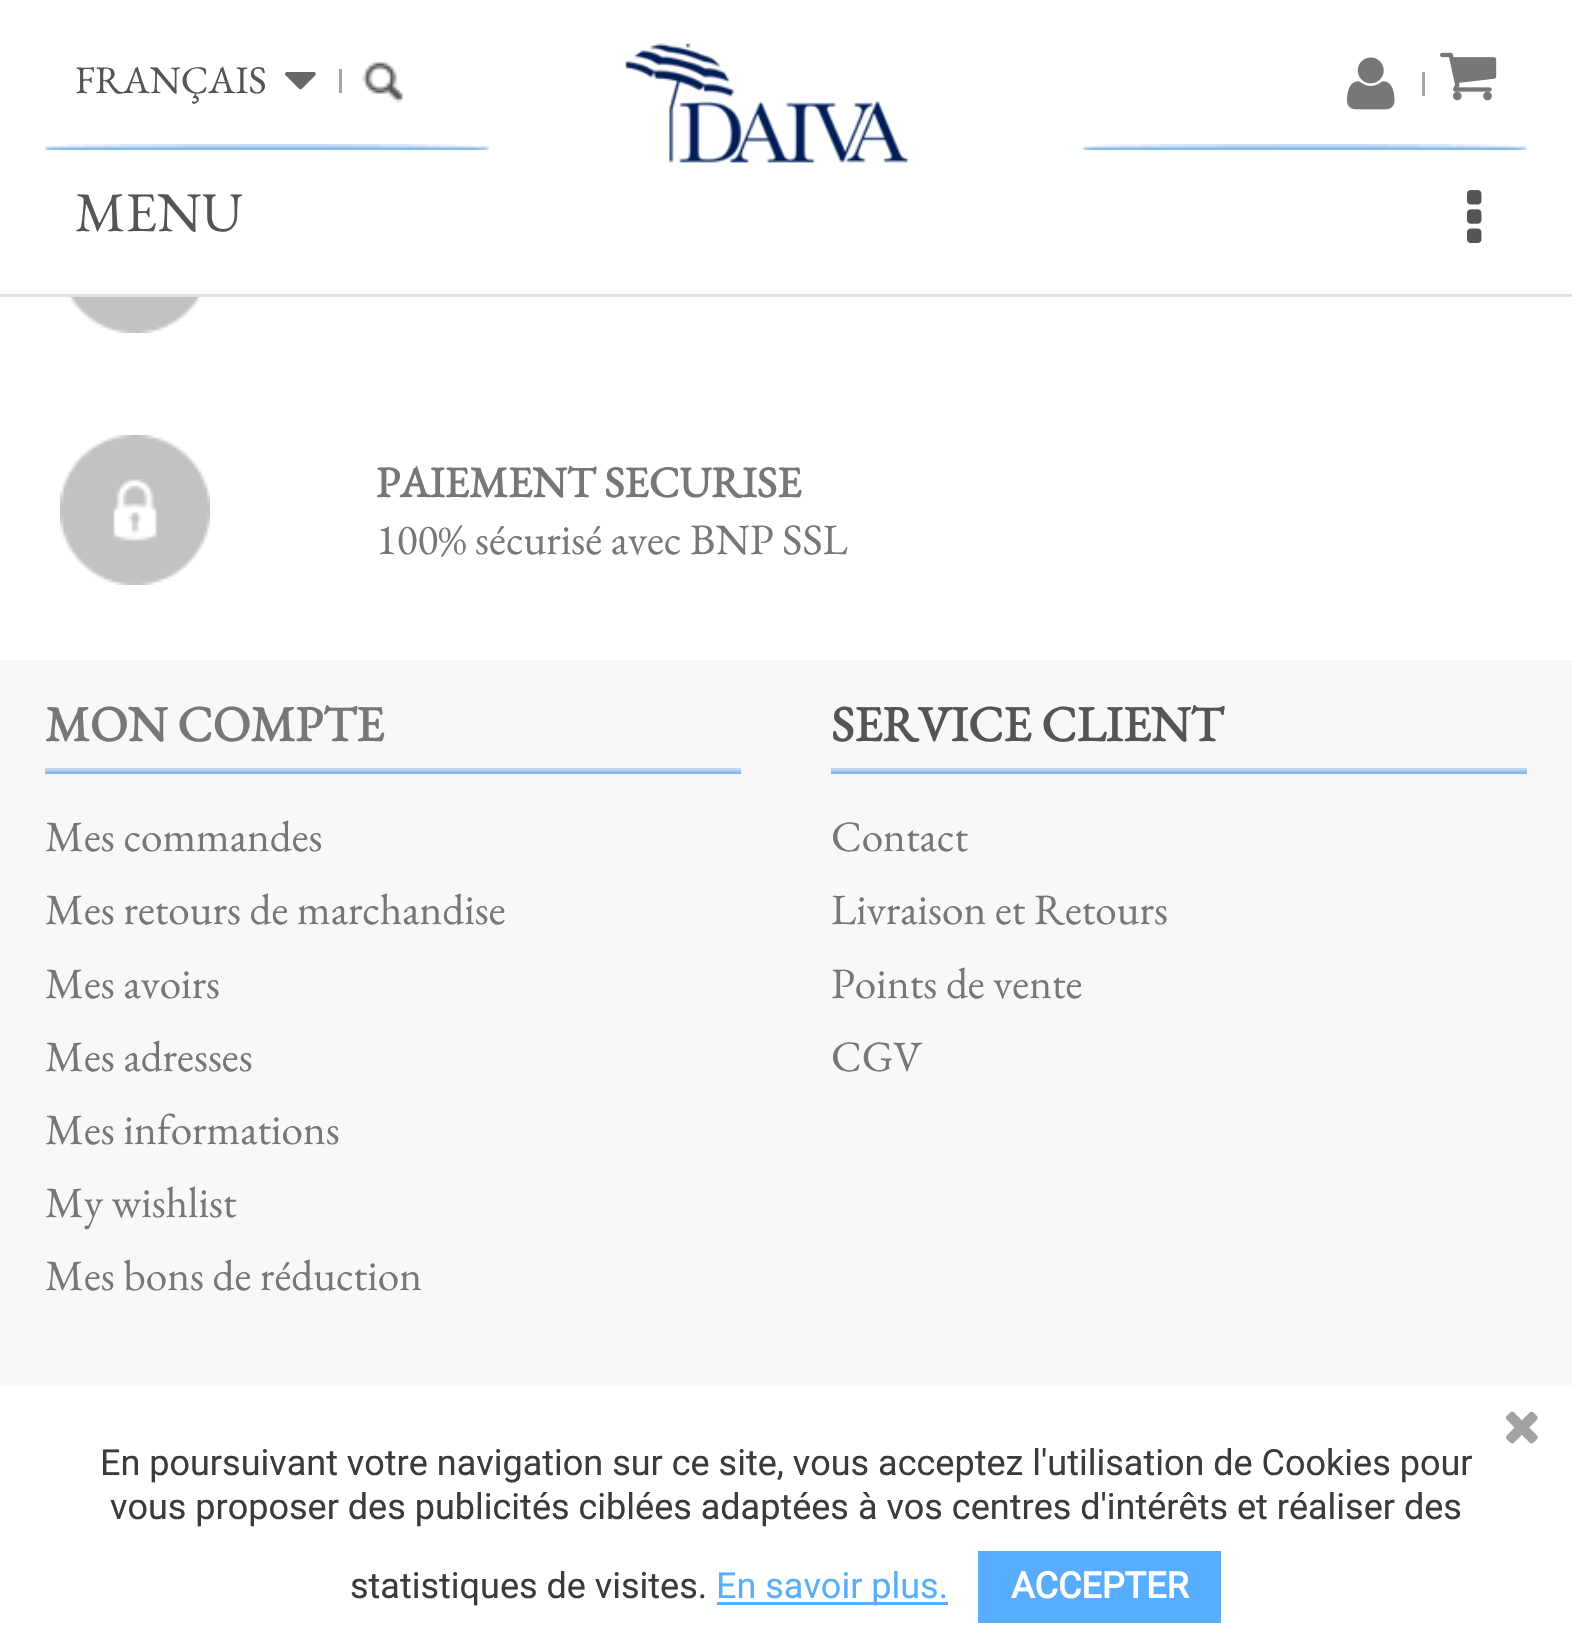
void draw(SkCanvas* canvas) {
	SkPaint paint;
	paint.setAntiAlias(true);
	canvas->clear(0xffffffff);
	paint.setColor(0xffe3e3e3);
	canvas->drawRect(SkRect::MakeXYWH(0, 294, 1572, 3), paint);
	SkFont f1(fontMgr->matchFamilyStyle("EB Garamond", SkFontStyle::Normal()), 39);
	f1.setSubpixel(true);
	paint.setColor(0xff555559);
	canvas->drawString("FRANÇAIS", 75, 93, f1, paint);
	canvas->drawImageRect(SkImages::DeferredFromEncodedData(SkData::MakeFromFileName("img1.png")), SkRect::MakeXYWH(285, 72, 31, 18), SkSamplingOptions());
	paint.setColor(0xffa5a6a6);
	canvas->drawRect(SkRect::MakeXYWH(339, 69, 3, 24), paint);
	canvas->drawImageRect(SkImages::DeferredFromEncodedData(SkData::MakeFromFileName("img2.png")), SkRect::MakeXYWH(362, 62, 41, 41), SkSamplingOptions());
	canvas->drawImageRect(SkImages::DeferredFromEncodedData(SkData::MakeFromFileName("img6.png")), SkRect::MakeXYWH(45, 144, 1482, 6), SkSamplingOptions());
	canvas->drawImageRect(SkImages::DeferredFromEncodedData(SkData::MakeFromFileName("img3.png")), SkRect::MakeXYWH(625, 43, 283, 120), SkSamplingOptions());
	canvas->drawImageRect(SkImages::DeferredFromEncodedData(SkData::MakeFromFileName("img4.png")), SkRect::MakeXYWH(1347, 57, 48, 53), SkSamplingOptions());
	canvas->drawRect(SkRect::MakeXYWH(1422, 72, 3, 24), paint);
	canvas->drawImageRect(SkImages::DeferredFromEncodedData(SkData::MakeFromFileName("img5.png")), SkRect::MakeXYWH(1440, 52, 57, 49), SkSamplingOptions());
	SkFont f2(fontMgr->matchFamilyStyle("EB Garamond", SkFontStyle::Normal()), 56);
	f2.setSubpixel(true);
	paint.setColor(0xff555559);
	canvas->drawString("MENU", 75, 231, f2, paint);
	canvas->drawImageRect(SkImages::DeferredFromEncodedData(SkData::MakeFromFileName("img7.png")), SkRect::MakeXYWH(1467, 190, 15, 53), SkSamplingOptions());
	canvas->drawImageRect(SkImages::DeferredFromEncodedData(SkData::MakeFromFileName("img8.png")), SkRect::MakeXYWH(68, 297, 134, 36), SkSamplingOptions());
	canvas->drawImageRect(SkImages::DeferredFromEncodedData(SkData::MakeFromFileName("img9.png")), SkRect::MakeXYWH(60, 435, 150, 150), SkSamplingOptions());
	SkFont f3(fontMgr->matchFamilyStyle("EB Garamond", SkFontStyle::Bold()), 43.25);
	f3.setSubpixel(true);
	paint.setColor(0xff777777);
	canvas->drawString("PAIEMENT SECURISE", 376, 497, f3, paint);
	SkFont f4(fontMgr->matchFamilyStyle("EB Garamond", SkFontStyle::Normal()), 43.25);
	f4.setSubpixel(true);
	canvas->drawString("100% sécurisé avec BNP SSL", 376, 554, f4, paint);
	paint.setColor(0xfff8f8f8);
	canvas->drawRect(SkRect::MakeXYWH(0, 660, 1572, 726), paint);
	canvas->drawImageRect(SkImages::DeferredFromEncodedData(SkData::MakeFromFileName("img10.png")), SkRect::MakeXYWH(45, 768, 696, 6), SkSamplingOptions());
	SkFont f5(fontMgr->matchFamilyStyle("EB Garamond", SkFontStyle::Bold()), 49.75);
	f5.setSubpixel(true);
	paint.setColor(0xff777777);
	canvas->drawString("MON COMPTE", 45, 741, f5, paint);
	canvas->drawString("Mes commandes", 45, 851, f4, paint);
	canvas->drawString("Mes retours de marchandise", 45, 924, f4, paint);
	canvas->drawString("Mes avoirs", 45, 998, f4, paint);
	canvas->drawString("Mes adresses", 45, 1071, f4, paint);
	canvas->drawString("Mes informations", 45, 1144, f4, paint);
	canvas->drawString("My wishlist", 45, 1217, f4, paint);
	canvas->drawString("Mes bons de réduction", 45, 1290, f4, paint);
	canvas->drawImageRect(SkImages::DeferredFromEncodedData(SkData::MakeFromFileName("img10.png")), SkRect::MakeXYWH(831, 768, 696, 6), SkSamplingOptions());
	paint.setColor(0xff555559);
	canvas->drawString("SERVICE CLIENT", 831, 741, f5, paint);
	paint.setColor(0xff777777);
	canvas->drawString("Contact", 831, 851, f4, paint);
	canvas->drawString("Livraison et Retours", 831, 924, f4, paint);
	canvas->drawString("Points de vente", 831, 998, f4, paint);
	canvas->drawString("CGV", 831, 1071, f4, paint);
	canvas->drawImageRect(SkImages::DeferredFromEncodedData(SkData::MakeFromFileName("img11.png")), SkRect::MakeXYWH(1506, 1411, 32, 33), SkSamplingOptions());
	SkFont f6(fontMgr->matchFamilyStyle("Roboto", SkFontStyle::Normal()), 36);
	f6.setSubpixel(true);
	paint.setColor(0xff3b3b3b);
	canvas->drawString("En poursuivant votre navigation sur ce site, vous acceptez l'utilisation de Cookies pour", 100, 1475, f6, paint);
	canvas->drawString("vous proposer des publicités ciblées adaptées à vos centres d'intérêts et réaliser des", 110, 1519, f6, paint);
	canvas->drawString("statistiques de visites.", 350, 1598, f6, paint);
	paint.setColor(0xff59adff);
	canvas->drawRect(SkRect::MakeXYWH(717, 1602, 231, 3), paint);
	canvas->drawString("En savoir plus.", 716, 1598, f6, paint);
	canvas->drawRect(SkRect::MakeXYWH(978, 1551, 243, 72), paint);
	SkFont f7(fontMgr->matchFamilyStyle("Roboto", SkFontStyle::Bold()), 36);
	f7.setSubpixel(true);
	paint.setColor(0xffffffff);
	canvas->drawString("ACCEPTER", 1011, 1598, f7, paint);
}
